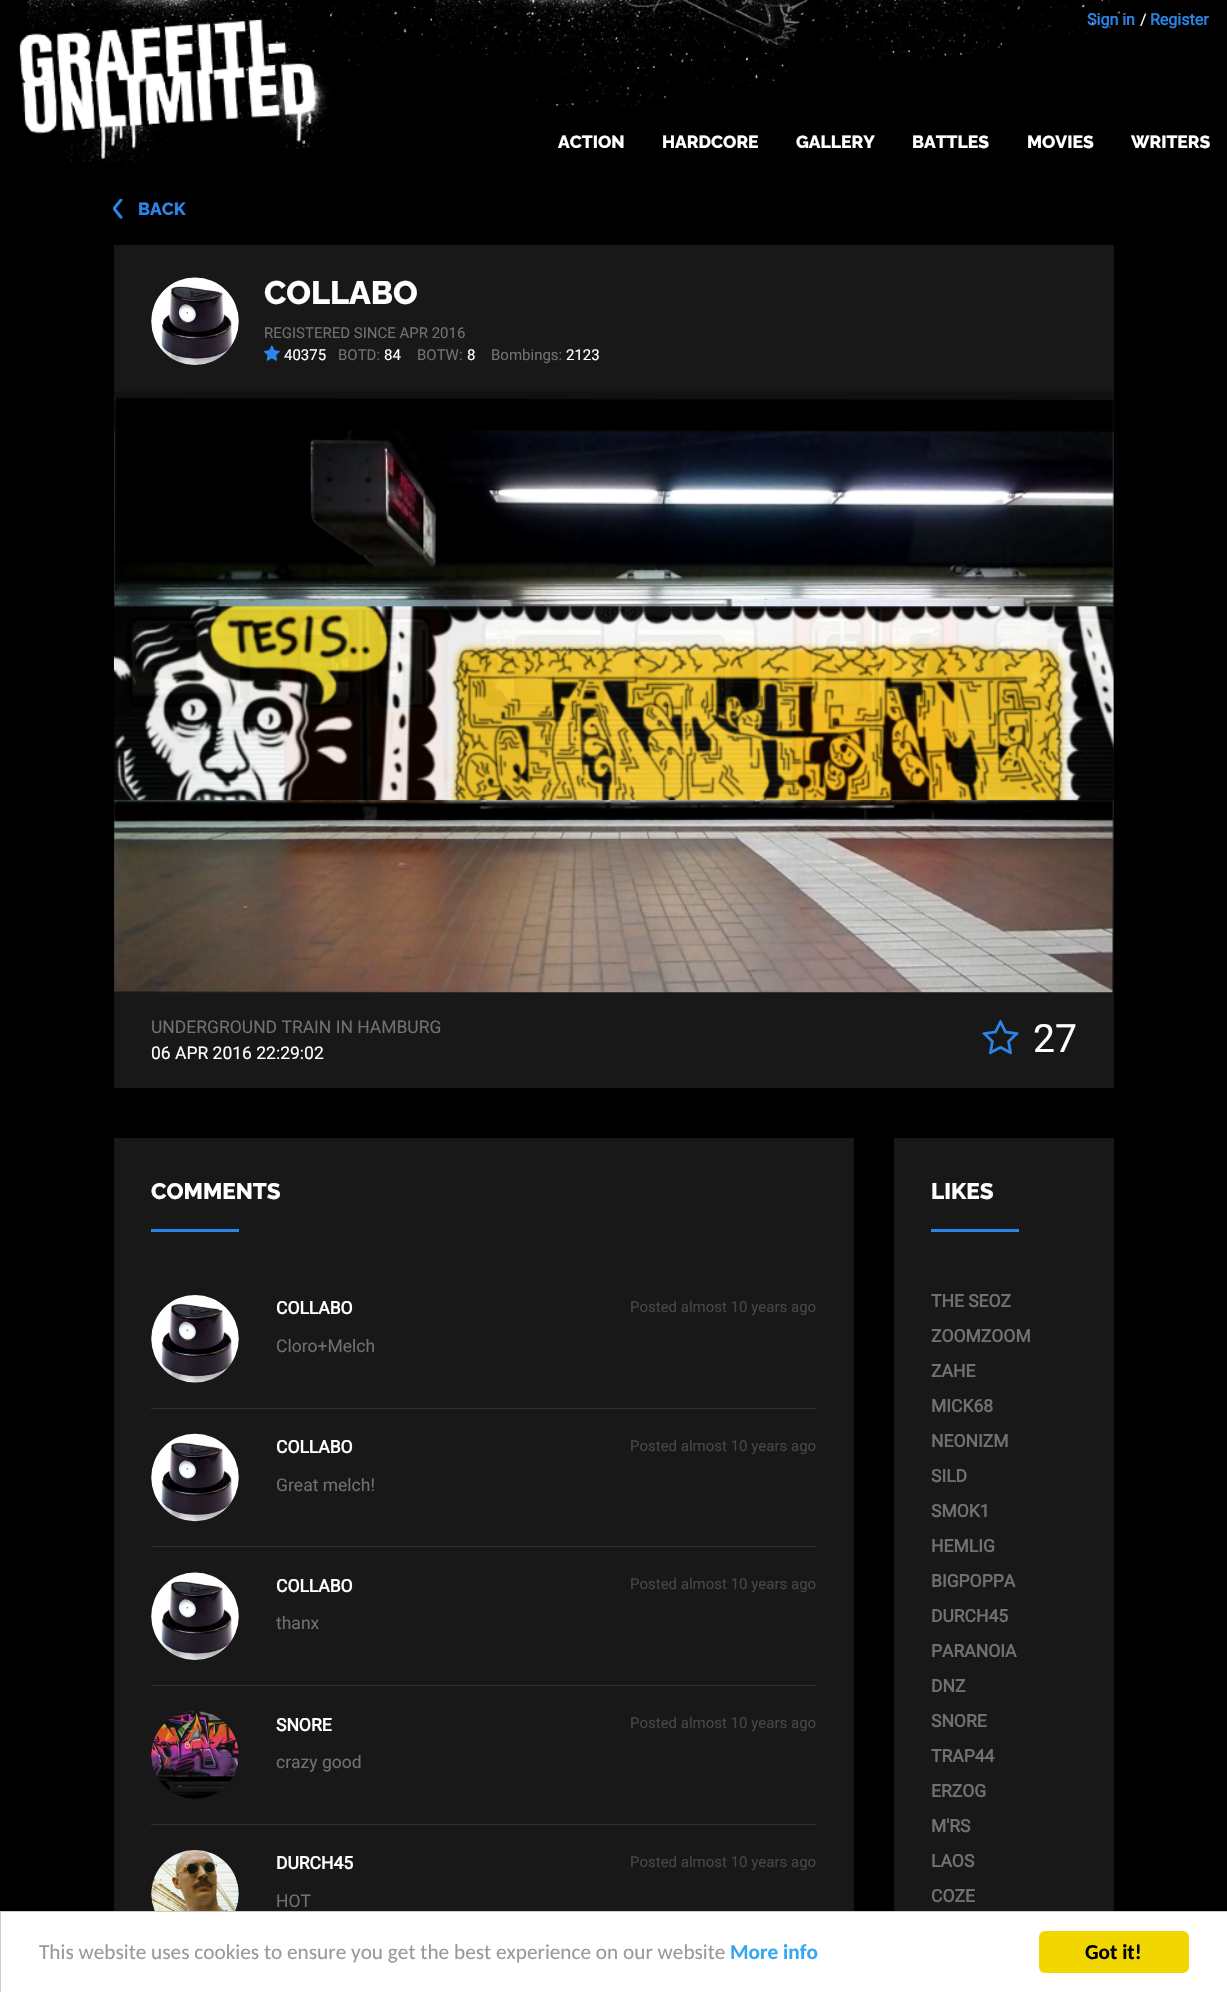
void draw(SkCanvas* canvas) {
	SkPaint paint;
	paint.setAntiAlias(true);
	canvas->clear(0xff000000);
	canvas->drawImageRect(SkImages::DeferredFromEncodedData(SkData::MakeFromFileName("img1.png")), SkRect::MakeXYWH(27, 0, 1104, 109), SkSamplingOptions());
	canvas->drawImageRect(SkImages::DeferredFromEncodedData(SkData::MakeFromFileName("img2.png")), SkRect::MakeXYWH(19, 18, 344, 145), SkSamplingOptions());
	SkFont f1(fontMgr->matchFamilyStyle("Roboto", SkFontStyle::Bold()), 16);
	f1.setSubpixel(true);
	paint.setColor(0xff2a85e8);
	canvas->drawString("Sign in", 1087, 25, f1, paint);
	SkFont f2(fontMgr->matchFamilyStyle("Roboto", SkFontStyle::Normal()), 16);
	f2.setSubpixel(true);
	paint.setColor(0xffffffff);
	canvas->drawString("/", 1140, 25, f2, paint);
	paint.setColor(0xff2a85e8);
	canvas->drawString("Register", 1150, 25, f1, paint);
	SkFont f3(fontMgr->matchFamilyStyle("Raleway", SkFontStyle(800, SkFontStyle::kNormal_Width, SkFontStyle::kUpright_Slant)), 17.5);
	f3.setSubpixel(true);
	paint.setColor(0xffffffff);
	canvas->drawString("ACTION", 558, 148, f3, paint);
	canvas->drawString("HARDCORE", 662, 148, f3, paint);
	canvas->drawString("GALLERY", 796, 148, f3, paint);
	canvas->drawString("BATTLES", 912, 148, f3, paint);
	canvas->drawString("MOVIES", 1027, 148, f3, paint);
	canvas->drawString("WRITERS", 1131, 148, f3, paint);
	canvas->drawImageRect(SkImages::DeferredFromEncodedData(SkData::MakeFromFileName("img3.png")), SkRect::MakeXYWH(113, 199, 10, 20), SkSamplingOptions());
	paint.setColor(0xff2a85e8);
	canvas->drawString("BACK", 138, 215, f3, paint);
	paint.setColor(0xff181818);
	canvas->drawRect(SkRect::MakeXYWH(114, 245, 1000, 843), paint);
	canvas->drawImageRect(SkImages::DeferredFromEncodedData(SkData::MakeFromFileName("img4.png")), SkRect::MakeXYWH(151, 277, 88, 88), SkSamplingOptions());
	SkFont f4(fontMgr->matchFamilyStyle("Raleway", SkFontStyle(800, SkFontStyle::kNormal_Width, SkFontStyle::kUpright_Slant)), 32.5);
	f4.setSubpixel(true);
	paint.setColor(0xffffffff);
	canvas->drawString("COLLABO", 264, 304, f4, paint);
	SkFont f5(fontMgr->matchFamilyStyle("Roboto", SkFontStyle::Normal()), 15);
	f5.setSubpixel(true);
	paint.setColor(0xff707070);
	canvas->drawString("REGISTERED SINCE APR 2016", 264, 338, f5, paint);
	canvas->drawImageRect(SkImages::DeferredFromEncodedData(SkData::MakeFromFileName("img5.png")), SkRect::MakeXYWH(263, 345, 17, 16), SkSamplingOptions());
	paint.setColor(0xffffffff);
	canvas->drawString("40375", 284, 360, f5, paint);
	paint.setColor(0xff707070);
	canvas->drawString("BOTD:", 338, 360, f5, paint);
	paint.setColor(0xffffffff);
	canvas->drawString("84", 384, 360, f5, paint);
	paint.setColor(0xff707070);
	canvas->drawString("BOTW:", 417, 360, f5, paint);
	paint.setColor(0xffffffff);
	canvas->drawString("8", 467, 360, f5, paint);
	paint.setColor(0xff707070);
	canvas->drawString("Bombings:", 491, 360, f5, paint);
	paint.setColor(0xffffffff);
	canvas->drawString("2123", 566, 360, f5, paint);
	canvas->drawImageRect(SkImages::DeferredFromEncodedData(SkData::MakeFromFileName("img6.png")), SkRect::MakeXYWH(113, 391, 1001, 602), SkSamplingOptions());
	SkFont f6(fontMgr->matchFamilyStyle("Roboto", SkFontStyle::Normal()), 17.5);
	f6.setSubpixel(true);
	paint.setColor(0xff707070);
	canvas->drawString("UNDERGROUND TRAIN IN HAMBURG", 151, 1033, f6, paint);
	paint.setColor(0xffffffff);
	canvas->drawString("06 APR 2016 22:29:02", 151, 1059, f6, paint);
	canvas->drawImageRect(SkImages::DeferredFromEncodedData(SkData::MakeFromFileName("img7.png")), SkRect::MakeXYWH(982, 1020, 37, 35), SkSamplingOptions());
	SkFont f7(fontMgr->matchFamilyStyle("Roboto", SkFontStyle::Normal()), 39);
	f7.setSubpixel(true);
	canvas->drawString("27", 1033, 1052, f7, paint);
	paint.setColor(0xff181818);
	canvas->drawRect(SkRect::MakeXYWH(114, 1138, 740, 773), paint);
	SkFont f8(fontMgr->matchFamilyStyle("Raleway", SkFontStyle(800, SkFontStyle::kNormal_Width, SkFontStyle::kUpright_Slant)), 22.5);
	f8.setSubpixel(true);
	paint.setColor(0xffffffff);
	canvas->drawString("COMMENTS", 151, 1199, f8, paint);
	paint.setColor(0xff2a85e8);
	canvas->drawRect(SkRect::MakeXYWH(151, 1229, 88, 3), paint);
	paint.setColor(0xff313131);
	canvas->drawRect(SkRect::MakeXYWH(151, 1408, 665, 1), paint);
	canvas->drawImageRect(SkImages::DeferredFromEncodedData(SkData::MakeFromFileName("img8.png")), SkRect::MakeXYWH(151, 1295, 88, 88), SkSamplingOptions());
	SkFont f9(fontMgr->matchFamilyStyle("Roboto", SkFontStyle::Bold()), 17.5);
	f9.setSubpixel(true);
	paint.setColor(0xffffffff);
	canvas->drawString("COLLABO", 276, 1314, f9, paint);
	paint.setColor(0xff464646);
	canvas->drawString("Posted almost 10 years ago", 630, 1312, f5, paint);
	paint.setColor(0xff707070);
	canvas->drawString("Cloro+Melch", 276, 1352, f6, paint);
	paint.setColor(0xff313131);
	canvas->drawRect(SkRect::MakeXYWH(151, 1546, 665, 1), paint);
	canvas->drawImageRect(SkImages::DeferredFromEncodedData(SkData::MakeFromFileName("img9.png")), SkRect::MakeXYWH(151, 1433, 88, 89), SkSamplingOptions());
	paint.setColor(0xffffffff);
	canvas->drawString("COLLABO", 276, 1453, f9, paint);
	paint.setColor(0xff464646);
	canvas->drawString("Posted almost 10 years ago", 630, 1451, f5, paint);
	paint.setColor(0xff707070);
	canvas->drawString("Great melch!", 276, 1491, f6, paint);
	paint.setColor(0xff313131);
	canvas->drawRect(SkRect::MakeXYWH(151, 1685, 665, 1), paint);
	canvas->drawImageRect(SkImages::DeferredFromEncodedData(SkData::MakeFromFileName("img10.png")), SkRect::MakeXYWH(151, 1572, 88, 88), SkSamplingOptions());
	paint.setColor(0xffffffff);
	canvas->drawString("COLLABO", 276, 1592, f9, paint);
	paint.setColor(0xff464646);
	canvas->drawString("Posted almost 10 years ago", 630, 1589, f5, paint);
	paint.setColor(0xff707070);
	canvas->drawString("thanx", 276, 1629, f6, paint);
	paint.setColor(0xff313131);
	canvas->drawRect(SkRect::MakeXYWH(151, 1824, 665, 1), paint);
	canvas->drawImageRect(SkImages::DeferredFromEncodedData(SkData::MakeFromFileName("img11.png")), SkRect::MakeXYWH(151, 1711, 88, 88), SkSamplingOptions());
	paint.setColor(0xffffffff);
	canvas->drawString("SNORE", 276, 1731, f9, paint);
	paint.setColor(0xff464646);
	canvas->drawString("Posted almost 10 years ago", 630, 1728, f5, paint);
	paint.setColor(0xff707070);
	canvas->drawString("crazy good", 276, 1768, f6, paint);
	canvas->drawImageRect(SkImages::DeferredFromEncodedData(SkData::MakeFromFileName("img12.png")), SkRect::MakeXYWH(151, 1850, 88, 61), SkSamplingOptions());
	paint.setColor(0xffffffff);
	canvas->drawString("DURCH45", 276, 1869, f9, paint);
	paint.setColor(0xff464646);
	canvas->drawString("Posted almost 10 years ago", 630, 1867, f5, paint);
	paint.setColor(0xff707070);
	canvas->drawString("HOT", 276, 1907, f6, paint);
	paint.setColor(0xff181818);
	canvas->drawRect(SkRect::MakeXYWH(894, 1138, 220, 773), paint);
	paint.setColor(0xffffffff);
	canvas->drawString("LIKES", 931, 1199, f8, paint);
	paint.setColor(0xff2a85e8);
	canvas->drawRect(SkRect::MakeXYWH(931, 1229, 88, 3), paint);
	paint.setColor(0xff707070);
	canvas->drawString("THE SEOZ", 931, 1307, f9, paint);
	canvas->drawString("ZOOMZOOM", 931, 1342, f9, paint);
	canvas->drawString("ZAHE", 931, 1377, f9, paint);
	canvas->drawString("MICK68", 931, 1412, f9, paint);
	canvas->drawString("NEONIZM", 931, 1447, f9, paint);
	canvas->drawString("SILD", 931, 1482, f9, paint);
	canvas->drawString("SMOK1", 931, 1517, f9, paint);
	canvas->drawString("HEMLIG", 931, 1552, f9, paint);
	canvas->drawString("BIGPOPPA", 931, 1587, f9, paint);
	canvas->drawString("DURCH45", 931, 1622, f9, paint);
	canvas->drawString("PARANOIA", 931, 1657, f9, paint);
	canvas->drawString("DNZ", 931, 1692, f9, paint);
	canvas->drawString("SNORE", 931, 1727, f9, paint);
	canvas->drawString("TRAP44", 931, 1762, f9, paint);
	canvas->drawString("ERZOG", 931, 1797, f9, paint);
	canvas->drawString("M'RS", 931, 1832, f9, paint);
	canvas->drawString("LAOS", 931, 1867, f9, paint);
	canvas->drawString("COZE", 931, 1902, f9, paint);
	paint.setColor(0xffffffff);
	canvas->drawRect(SkRect::MakeXYWH(0.5, 1911.5, 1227, 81), paint);
	paint.setStroke(true);
	paint.setStrokeWidth(1);
	paint.setColor(0xffcccccc);
	canvas->drawRect(SkRect::MakeXYWH(0.5, 1911.5, 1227, 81), paint);
	SkFont f10(fontMgr->matchFamilyStyle("Carlito", SkFontStyle::Normal()), 21.25);
	f10.setSubpixel(true);
	paint.setStroke(false);
	paint.setColor(0xff999999);
	canvas->drawString("This website uses cookies to ensure you get the best experience on our website", 39, 1959, f10, paint);
	SkFont f11(fontMgr->matchFamilyStyle("Carlito", SkFontStyle::Bold()), 21.25);
	f11.setSubpixel(true);
	paint.setColor(0xff31a8f0);
	canvas->drawString("More info", 730, 1959, f11, paint);
	paint.setColor(0xfff1d600);
	canvas->drawRoundRect(SkRect::MakeXYWH(1039, 1931, 150, 42), 6, 6, paint);
	paint.setColor(0xff000000);
	canvas->drawString("Got it!", 1085, 1959, f11, paint);
}
